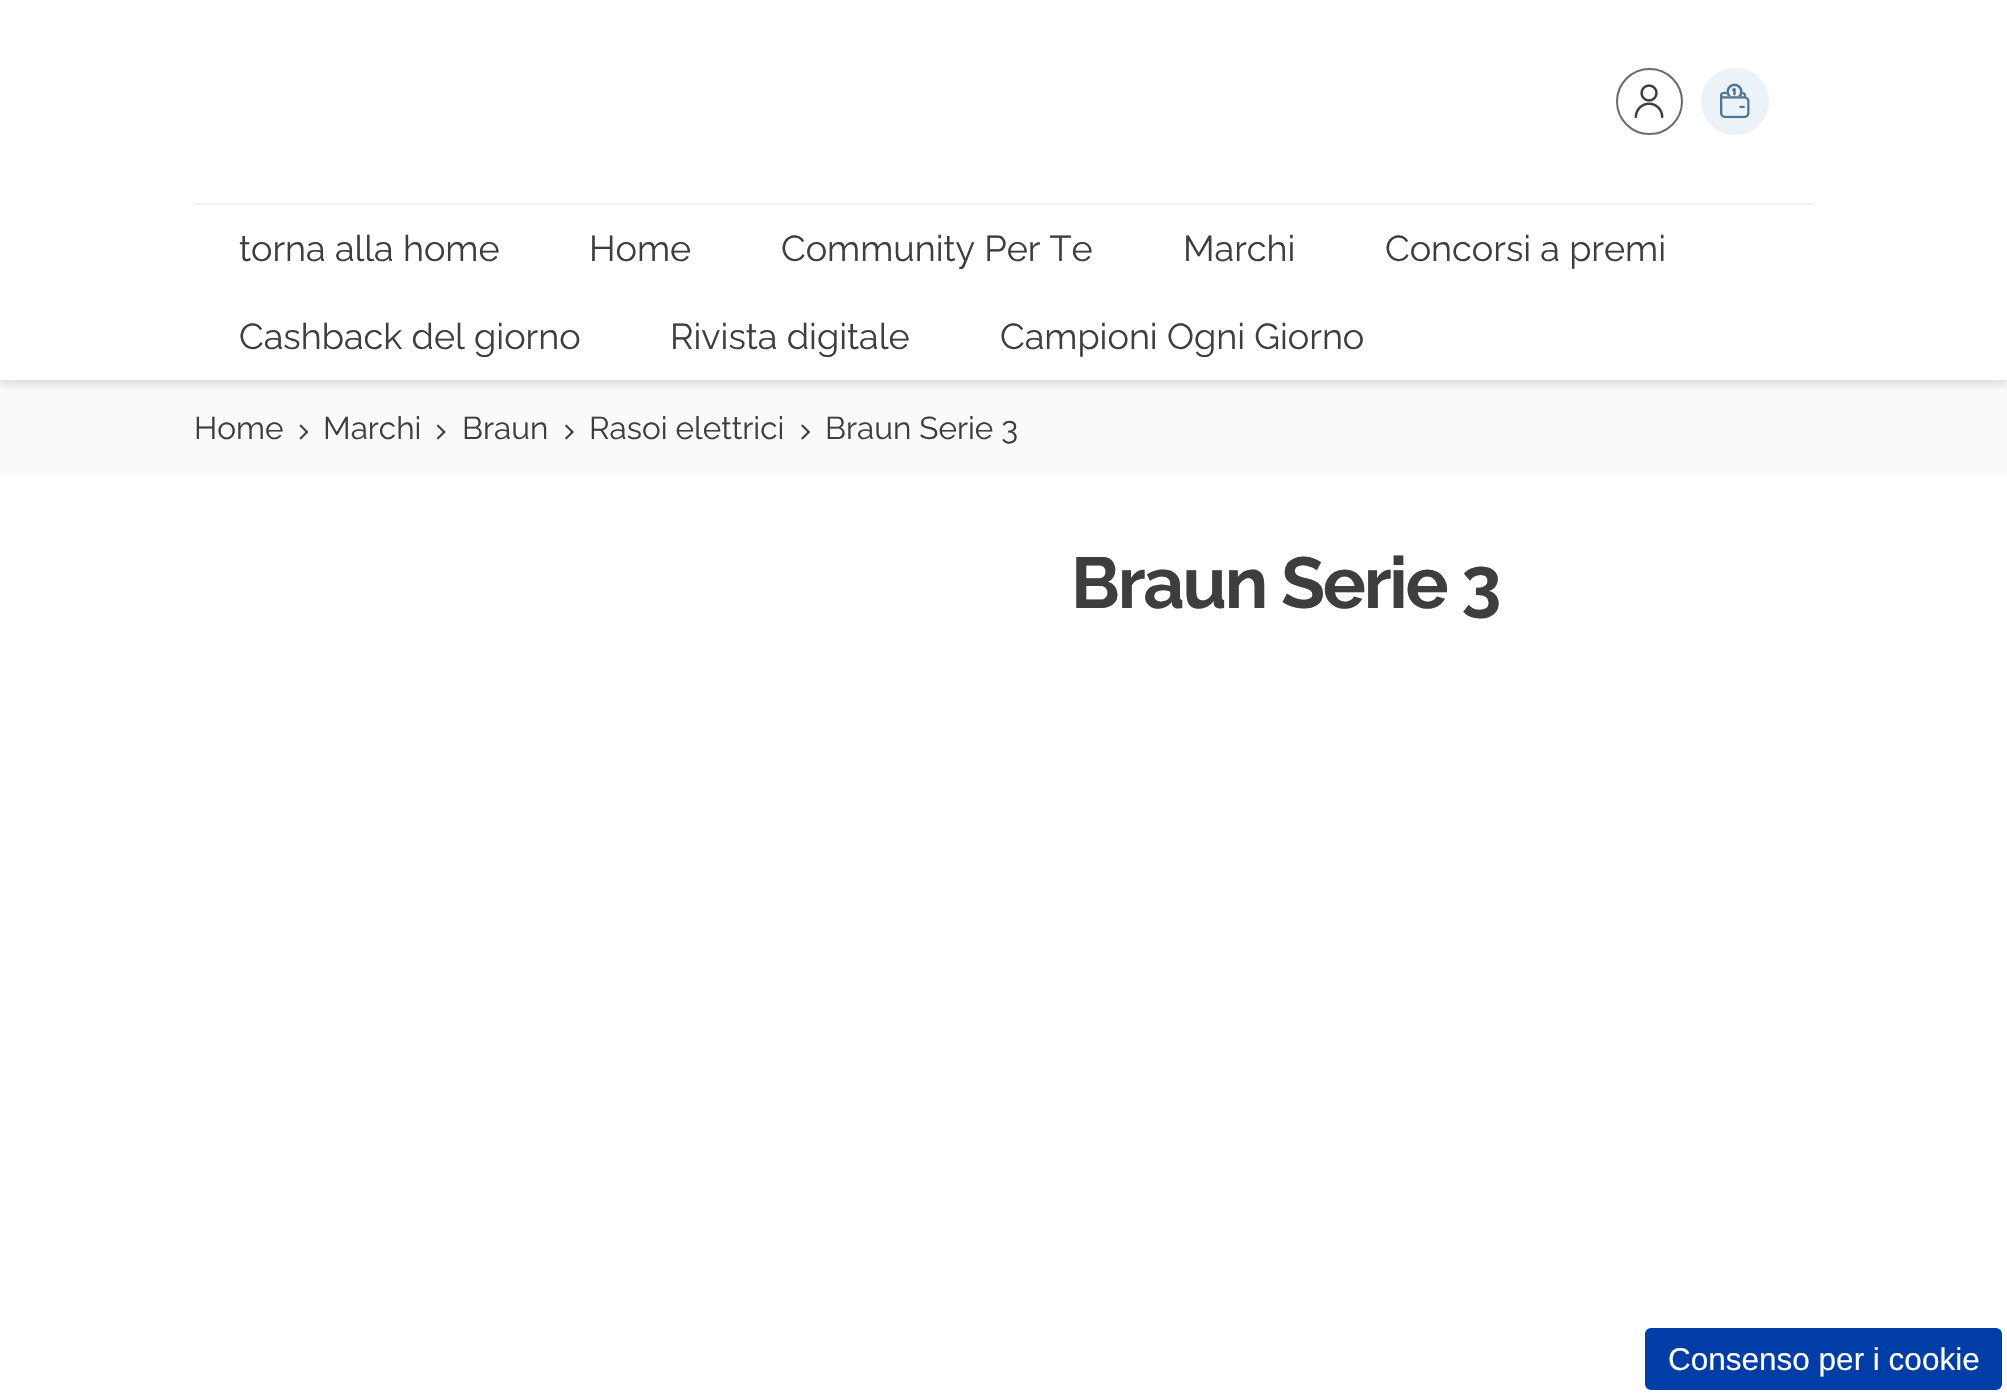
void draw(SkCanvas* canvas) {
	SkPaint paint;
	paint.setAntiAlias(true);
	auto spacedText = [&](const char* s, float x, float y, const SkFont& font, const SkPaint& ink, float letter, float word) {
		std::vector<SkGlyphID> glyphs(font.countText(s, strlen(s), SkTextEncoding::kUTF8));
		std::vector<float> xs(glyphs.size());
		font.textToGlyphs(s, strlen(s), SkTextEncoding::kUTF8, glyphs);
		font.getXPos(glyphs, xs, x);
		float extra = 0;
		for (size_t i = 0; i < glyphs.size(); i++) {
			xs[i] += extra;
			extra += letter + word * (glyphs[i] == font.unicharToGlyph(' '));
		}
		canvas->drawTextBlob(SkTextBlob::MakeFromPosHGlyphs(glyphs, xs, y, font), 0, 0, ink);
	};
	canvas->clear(0xffffffff);
	paint.setColor(0xfffafafa);
	canvas->drawRect(SkRect::MakeXYWH(0, 380, 2007, 93), paint);
	canvas->save();
	canvas->clipRect(SkRect::MakeXYWH(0, 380, 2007, 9));
	paint.setColor(0x1c000000);
	paint.setMaskFilter(SkMaskFilter::MakeBlur(kNormal_SkBlurStyle, 4.5));
	canvas->drawRect(SkRect::MakeXYWH(0, 5, 2007, 380), paint);
	paint.setMaskFilter(nullptr);
	canvas->restore();
	paint.setColor(0xfff2f2f2);
	canvas->drawRect(SkRect::MakeXYWH(194, 203, 1620, 2), paint);
	paint.setStroke(true);
	paint.setStrokeWidth(2);
	paint.setColor(0xff6b6b6b);
	canvas->drawCircle(1649.5, 101.5, 32.5, paint);
	canvas->drawImageRect(SkImages::DeferredFromEncodedData(SkData::MakeFromFileName("img1.png")), SkRect::MakeXYWH(1634, 84, 30, 35), SkSamplingOptions());
	paint.setStroke(false);
	paint.setColor(0xffecf3f8);
	canvas->drawRoundRect(SkRect::MakeXYWH(1702, 69, 66, 65), 32.5, 32.5, paint);
	paint.setStroke(true);
	canvas->drawRoundRect(SkRect::MakeXYWH(1702, 69, 66, 65), 32.5, 32.5, paint);
	canvas->drawImageRect(SkImages::DeferredFromEncodedData(SkData::MakeFromFileName("img2.png")), SkRect::MakeXYWH(1720, 83, 30, 36), SkSamplingOptions());
	SkFont f1(fontMgr->matchFamilyStyle("Raleway", SkFontStyle::Normal()), 36);
	f1.setSubpixel(true);
	paint.setStroke(false);
	paint.setColor(0xff3e3d40);
	canvas->drawString("torna alla home", 239, 261, f1, paint);
	canvas->drawString("Home", 589, 261, f1, paint);
	canvas->drawString("Community Per Te", 781, 261, f1, paint);
	canvas->drawString("Marchi", 1183, 261, f1, paint);
	canvas->drawString("Concorsi a premi", 1385, 261, f1, paint);
	canvas->drawString("Cashback del giorno", 239, 349, f1, paint);
	canvas->drawString("Rivista digitale", 670, 349, f1, paint);
	canvas->drawString("Campioni Ogni Giorno", 1000, 349, f1, paint);
	SkFont f2(fontMgr->matchFamilyStyle("Raleway", SkFontStyle::Normal()), 31.5);
	f2.setSubpixel(true);
	canvas->drawString("Home", 194, 439, f2, paint);
	canvas->drawImageRect(SkImages::DeferredFromEncodedData(SkData::MakeFromFileName("img3.png")), SkRect::MakeXYWH(299, 424, 10, 16), SkSamplingOptions());
	canvas->drawString("Marchi", 323, 439, f2, paint);
	canvas->drawImageRect(SkImages::DeferredFromEncodedData(SkData::MakeFromFileName("img4.png")), SkRect::MakeXYWH(436, 424, 10, 16), SkSamplingOptions());
	canvas->drawString("Braun", 462, 439, f2, paint);
	canvas->drawImageRect(SkImages::DeferredFromEncodedData(SkData::MakeFromFileName("img5.png")), SkRect::MakeXYWH(565, 424, 9, 16), SkSamplingOptions());
	canvas->drawString("Rasoi elettrici", 589, 439, f2, paint);
	canvas->drawImageRect(SkImages::DeferredFromEncodedData(SkData::MakeFromFileName("img6.png")), SkRect::MakeXYWH(801, 424, 9, 16), SkSamplingOptions());
	canvas->drawString("Braun Serie 3", 825, 439, f2, paint);
	SkFont f3(fontMgr->matchFamilyStyle("Raleway", SkFontStyle::Bold()), 72);
	f3.setSubpixel(true);
	spacedText("Braun Serie 3", 1071, 608, f3, paint, -2.25, 0);
	paint.setColor(0xff003da7);
	canvas->drawRoundRect(SkRect::MakeXYWH(1642.5, 1325.5, 362, 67), 8.5, 8.5, paint);
	paint.setStroke(true);
	paint.setStrokeWidth(5);
	paint.setColor(0xffffffff);
	canvas->drawRoundRect(SkRect::MakeXYWH(1642.5, 1325.5, 362, 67), 8.5, 8.5, paint);
	SkFont f4(fontMgr->matchFamilyStyle("Liberation Sans", SkFontStyle::Normal()), 31.5);
	f4.setSubpixel(true);
	paint.setStroke(false);
	canvas->drawString("Consenso per i cookie", 1668, 1370, f4, paint);
}
